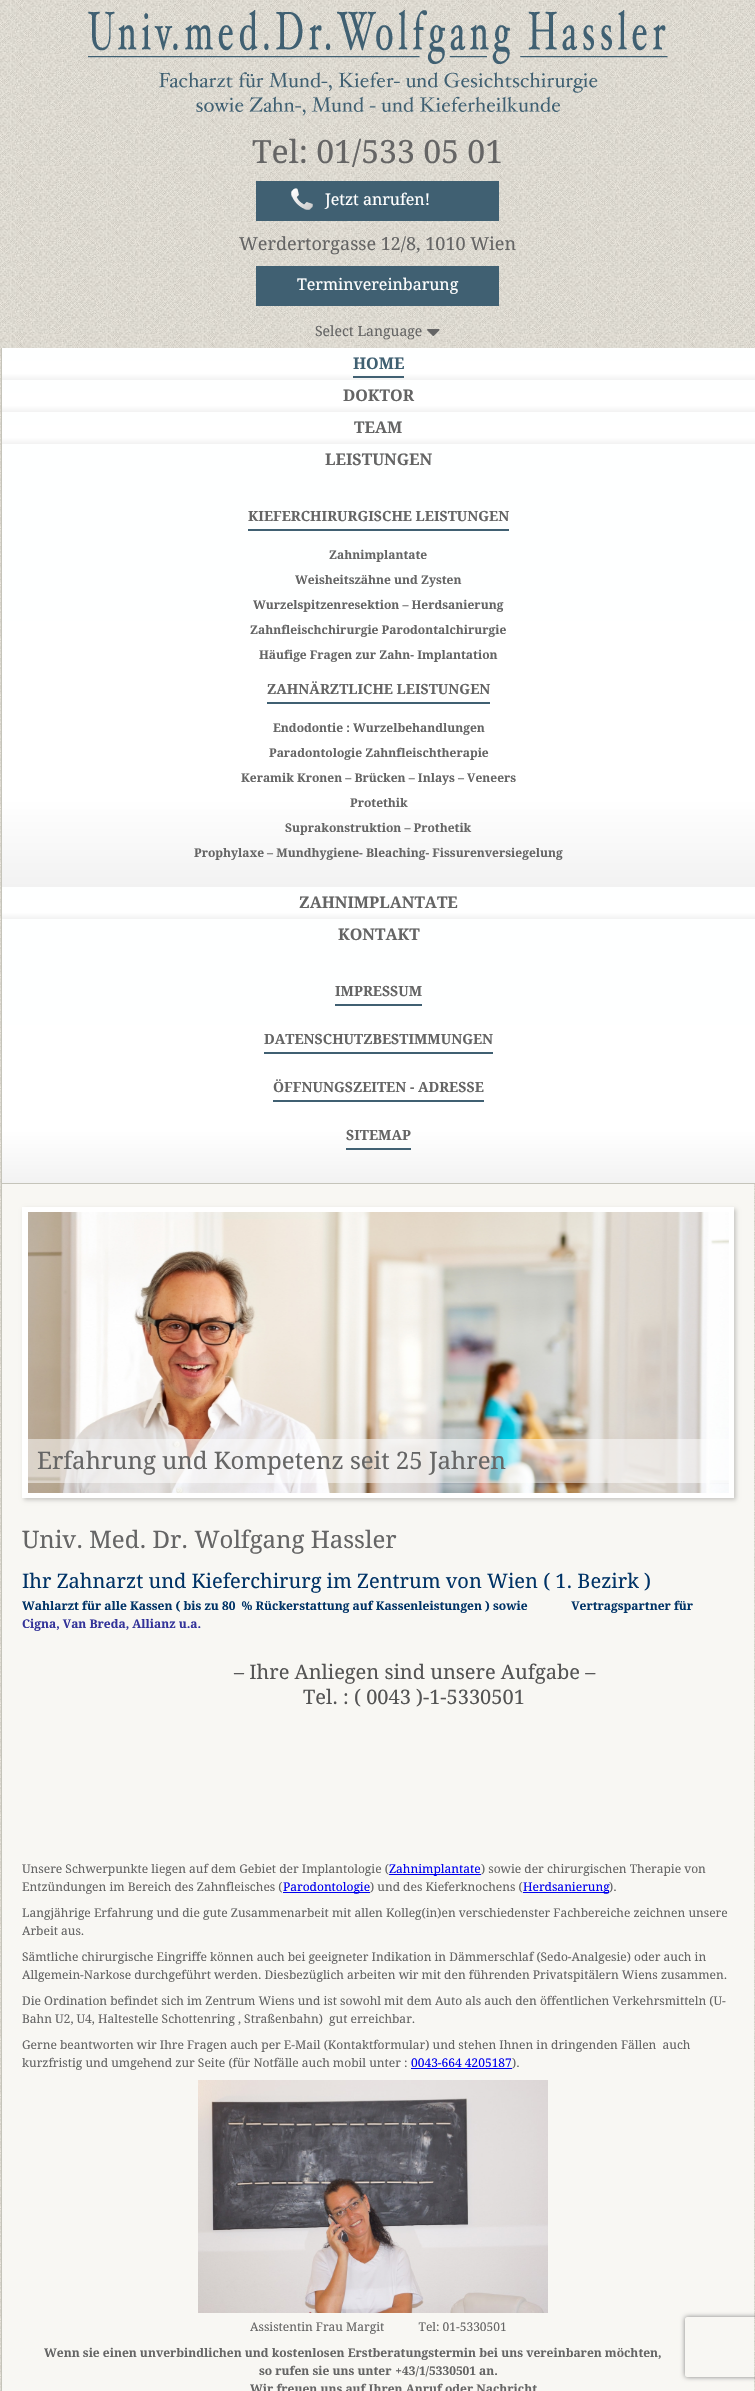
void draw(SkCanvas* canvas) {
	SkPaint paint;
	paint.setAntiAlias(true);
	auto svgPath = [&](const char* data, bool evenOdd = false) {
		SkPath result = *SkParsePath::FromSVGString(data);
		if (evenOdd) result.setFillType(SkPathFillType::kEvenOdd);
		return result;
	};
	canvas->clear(0xffffffff);
	canvas->drawImageRect(SkImages::DeferredFromEncodedData(SkData::MakeFromFileName("img1.png")), SkRect::MakeXYWH(0, 0, 755, 2391), SkSamplingOptions());
	canvas->drawImageRect(SkImages::DeferredFromEncodedData(SkData::MakeFromFileName("img2.png")), SkRect::MakeXYWH(88, 10, 580, 106), SkSamplingOptions());
	SkFont f1(fontMgr->matchFamilyStyle("Droid Serif", SkFontStyle::Normal()), 32);
	f1.setSubpixel(true);
	paint.setColor(0xff656565);
	canvas->drawString("Tel: 01/533 05 01", 252, 163, f1, paint);
	paint.setColor(0xff406072);
	canvas->drawRect(SkRect::MakeXYWH(256, 181, 243, 40), paint);
	canvas->drawImageRect(SkImages::DeferredFromEncodedData(SkData::MakeFromFileName("img3.png")), SkRect::MakeXYWH(291, 188, 22, 22), SkSamplingOptions());
	SkFont f2(fontMgr->matchFamilyStyle("Droid Serif", SkFontStyle::Normal()), 16);
	f2.setSubpixel(true);
	paint.setColor(0xffffffff);
	canvas->drawString("Jetzt anrufen!", 325, 205, f2, paint);
	SkFont f3(fontMgr->matchFamilyStyle("Droid Serif", SkFontStyle::Normal()), 18);
	f3.setSubpixel(true);
	paint.setColor(0xff656565);
	canvas->drawString("Werdertorgasse 12/8, 1010 Wien", 239, 250, f3, paint);
	paint.setColor(0xff406072);
	canvas->drawRect(SkRect::MakeXYWH(256, 266, 243, 40), paint);
	paint.setColor(0xffffffff);
	canvas->drawString("Terminvereinbarung", 297, 290, f2, paint);
	SkFont f4(fontMgr->matchFamilyStyle("Droid Serif", SkFontStyle::Normal()), 14);
	f4.setSubpixel(true);
	paint.setColor(0xff656565);
	canvas->drawString("Select Language", 315, 336, f4, paint);
	canvas->drawImageRect(SkImages::DeferredFromEncodedData(SkData::MakeFromFileName("img4.png")), SkRect::MakeXYWH(427, 329, 13, 7), SkSamplingOptions());
	paint.setColor(0xffc5c4ba);
	canvas->drawRect(SkRect::MakeXYWH(1, 1183, 754, 1), paint);
	canvas->drawRect(SkRect::MakeXYWH(1, 348, 1, 836), paint);
	{
		const SkColor colors[] = {0xfffeffff, 0xffffffff, 0xfff2f2f2};
		const float stops[] = {0, 0.8, 1};
		const SkPoint ends[] = {{379, 348}, {379, 380}};
		paint.setShader(SkGradientShader::MakeLinear(ends, colors, stops, 3, SkTileMode::kClamp));
		paint.setAlpha(255);
	}
	canvas->drawRect(SkRect::MakeXYWH(2, 348, 753, 32), paint);
	SkFont f5(fontMgr->matchFamilyStyle("Droid Serif", SkFontStyle::Bold()), 16);
	f5.setSubpixel(true);
	paint.setShader(nullptr);
	paint.setColor(0xff406072);
	canvas->drawString("HOME", 353, 369, f5, paint);
	canvas->drawRect(SkRect::MakeXYWH(353, 376, 51, 2), paint);
	{
		const SkColor colors[] = {0xfffeffff, 0xffffffff, 0xfff2f2f2};
		const float stops[] = {0, 0.8, 1};
		const SkPoint ends[] = {{379, 380}, {379, 412}};
		paint.setShader(SkGradientShader::MakeLinear(ends, colors, stops, 3, SkTileMode::kClamp));
		paint.setAlpha(255);
	}
	canvas->drawRect(SkRect::MakeXYWH(2, 380, 753, 32), paint);
	paint.setShader(nullptr);
	paint.setColor(0xff656565);
	canvas->drawString("DOKTOR", 343, 401, f5, paint);
	{
		const SkColor colors[] = {0xfffeffff, 0xffffffff, 0xfff2f2f2};
		const float stops[] = {0, 0.8, 1};
		const SkPoint ends[] = {{379, 412}, {379, 444}};
		paint.setShader(SkGradientShader::MakeLinear(ends, colors, stops, 3, SkTileMode::kClamp));
		paint.setAlpha(255);
	}
	canvas->drawRect(SkRect::MakeXYWH(2, 412, 753, 32), paint);
	paint.setShader(nullptr);
	paint.setColor(0xff656565);
	canvas->drawString("TEAM", 354, 433, f5, paint);
	{
		const SkColor colors[] = {0xfffeffff, 0xffffffff, 0xfff2f2f2};
		const float stops[] = {0, 0.8, 1};
		const SkPoint ends[] = {{379, 444}, {379, 887}};
		paint.setShader(SkGradientShader::MakeLinear(ends, colors, stops, 3, SkTileMode::kClamp));
		paint.setAlpha(255);
	}
	canvas->drawRect(SkRect::MakeXYWH(2, 444, 753, 443), paint);
	paint.setShader(nullptr);
	paint.setColor(0xff656565);
	canvas->drawString("LEISTUNGEN", 325, 465, f5, paint);
	paint.setColor(0xff406072);
	canvas->drawRect(SkRect::MakeXYWH(248, 529, 261, 2), paint);
	SkFont f6(fontMgr->matchFamilyStyle("Droid Serif", SkFontStyle::Bold()), 14);
	f6.setSubpixel(true);
	paint.setColor(0xff656565);
	canvas->drawString("KIEFERCHIRURGISCHE LEISTUNGEN", 248, 521, f6, paint);
	SkFont f7(fontMgr->matchFamilyStyle("Droid Serif", SkFontStyle::Bold()), 12);
	f7.setSubpixel(true);
	canvas->drawString("Zahnimplantate", 329, 559, f7, paint);
	canvas->drawString("Weisheitszähne und Zysten", 295, 584, f7, paint);
	canvas->drawString("Wurzelspitzenresektion – Herdsanierung", 253, 609, f7, paint);
	canvas->drawString("Zahnfleischchirurgie Parodontalchirurgie", 250, 634, f7, paint);
	canvas->drawString("Häufige Fragen zur Zahn- Implantation", 259, 659, f7, paint);
	paint.setColor(0xff406072);
	canvas->drawRect(SkRect::MakeXYWH(267, 702, 223, 2), paint);
	paint.setColor(0xff656565);
	canvas->drawString("ZAHNÄRZTLICHE LEISTUNGEN", 267, 694, f6, paint);
	canvas->drawString("Endodontie : Wurzelbehandlungen", 273, 732, f7, paint);
	canvas->drawString("Paradontologie Zahnfleischtherapie", 269, 757, f7, paint);
	canvas->drawString("Keramik Kronen – Brücken – Inlays – Veneers", 241, 782, f7, paint);
	canvas->drawString("Protethik", 350, 807, f7, paint);
	canvas->drawString("Suprakonstruktion – Prothetik", 285, 832, f7, paint);
	canvas->drawString("Prophylaxe – Mundhygiene- Bleaching- Fissurenversiegelung", 194, 857, f7, paint);
	{
		const SkColor colors[] = {0xfffeffff, 0xffffffff, 0xfff2f2f2};
		const float stops[] = {0, 0.8, 1};
		const SkPoint ends[] = {{379, 887}, {379, 919}};
		paint.setShader(SkGradientShader::MakeLinear(ends, colors, stops, 3, SkTileMode::kClamp));
		paint.setAlpha(255);
	}
	canvas->drawRect(SkRect::MakeXYWH(2, 887, 753, 32), paint);
	paint.setShader(nullptr);
	paint.setColor(0xff656565);
	canvas->drawString("ZAHNIMPLANTATE", 299, 908, f5, paint);
	{
		const SkColor colors[] = {0xfffeffff, 0xffffffff, 0xfff2f2f2};
		const float stops[] = {0, 0.8, 1};
		const SkPoint ends[] = {{379, 919}, {379, 1183}};
		paint.setShader(SkGradientShader::MakeLinear(ends, colors, stops, 3, SkTileMode::kClamp));
		paint.setAlpha(255);
	}
	canvas->drawRect(SkRect::MakeXYWH(2, 919, 753, 264), paint);
	paint.setShader(nullptr);
	paint.setColor(0xff656565);
	canvas->drawString("KONTAKT", 338, 940, f5, paint);
	paint.setColor(0xff406072);
	canvas->drawRect(SkRect::MakeXYWH(335, 1004, 87, 2), paint);
	paint.setColor(0xff656565);
	canvas->drawString("IMPRESSUM", 335, 996, f6, paint);
	paint.setColor(0xff406072);
	canvas->drawRect(SkRect::MakeXYWH(264, 1052, 229, 2), paint);
	paint.setColor(0xff656565);
	canvas->drawString("DATENSCHUTZBESTIMMUNGEN", 264, 1044, f6, paint);
	paint.setColor(0xff406072);
	canvas->drawRect(SkRect::MakeXYWH(273, 1100, 211, 2), paint);
	paint.setColor(0xff656565);
	canvas->drawString("ÖFFNUNGSZEITEN - ADRESSE", 273, 1092, f6, paint);
	paint.setColor(0xff406072);
	canvas->drawRect(SkRect::MakeXYWH(346, 1148, 65, 2), paint);
	paint.setColor(0xff656565);
	canvas->drawString("SITEMAP", 346, 1140, f6, paint);
	paint.setColor(0xfff8f7f3);
	canvas->drawRect(SkRect::MakeXYWH(2, 1184, 752, 1207), paint);
	paint.setColor(0xffc5c4ba);
	canvas->drawRect(SkRect::MakeXYWH(1, 1184, 1, 1207), paint);
	paint.setColor(0x33000000);
	paint.setMaskFilter(SkMaskFilter::MakeBlur(kNormal_SkBlurStyle, 2));
	canvas->drawRect(SkRect::MakeXYWH(24, 1209, 712, 291), paint);
	paint.setMaskFilter(nullptr);
	paint.setColor(0xffffffff);
	canvas->drawRect(SkRect::MakeXYWH(22, 1207, 712, 291), paint);
	canvas->drawImageRect(SkImages::DeferredFromEncodedData(SkData::MakeFromFileName("img5.png")), SkRect::MakeXYWH(28, 1212, 701, 281), SkSamplingOptions());
	paint.setColor(0x80ffffff);
	canvas->drawRect(SkRect::MakeXYWH(28, 1439, 701, 44), paint);
	SkFont f8(fontMgr->matchFamilyStyle("Droid Serif", SkFontStyle::Normal()), 24);
	f8.setSubpixel(true);
	paint.setColor(0xff656565);
	canvas->drawString("Erfahrung und Kompetenz seit 25 Jahren", 37, 1469, f8, paint);
	canvas->drawString("Univ. Med. Dr. Wolfgang Hassler", 22, 1548, f8, paint);
	SkFont f9(fontMgr->matchFamilyStyle("Droid Serif", SkFontStyle::Normal()), 20);
	f9.setSubpixel(true);
	paint.setColor(0xff003366);
	canvas->drawString("Ihr Zahnarzt und Kieferchirurg im Zentrum von Wien ( 1. Bezirk )", 22, 1588, f9, paint);
	canvas->drawString("Wahlarzt für alle Kassen ( bis zu 80  % Rückerstattung auf Kassenleistungen ) sowie              Vertragspartner für", 22, 1610, f7, paint);
	paint.setColor(0xff333399);
	canvas->drawString("Cigna, Van Breda, Allianz u.a.", 22, 1628, f7, paint);
	paint.setColor(0xff545454);
	canvas->drawString("– Ihre Anliegen sind unsere Aufgabe –", 234, 1679, f9, paint);
	canvas->drawString("Tel. : ( 0043 )-1-5330501", 303, 1704, f9, paint);
	SkFont f10(fontMgr->matchFamilyStyle("Droid Serif", SkFontStyle::Normal()), 12);
	f10.setSubpixel(true);
	paint.setColor(0xff656565);
	canvas->drawString("Unsere Schwerpunkte liegen auf dem Gebiet der Implantologie (", 22, 1873, f10, paint);
	paint.setColor(0xff0000ee);
	canvas->drawRect(SkRect::MakeXYWH(389, 1874, 92, 1), paint);
	canvas->drawString("Zahnimplantate", 389, 1873, f10, paint);
	paint.setColor(0xff656565);
	canvas->drawString(") sowie der chirurgischen Therapie von", 481, 1873, f10, paint);
	canvas->drawString("Entzündungen im Bereich des Zahnfleisches (", 22, 1891, f10, paint);
	paint.setColor(0xff0000ee);
	canvas->drawRect(SkRect::MakeXYWH(283, 1892, 87, 1), paint);
	canvas->drawString("Parodontologie", 283, 1891, f10, paint);
	paint.setColor(0xff656565);
	canvas->drawString(") und des Kieferknochens (", 370, 1891, f10, paint);
	paint.setColor(0xff0000ee);
	canvas->drawRect(SkRect::MakeXYWH(523, 1892, 86, 1), paint);
	canvas->drawString("Herdsanierung", 523, 1891, f10, paint);
	paint.setColor(0xff656565);
	canvas->drawString(").", 609, 1891, f10, paint);
	canvas->drawString("Langjährige Erfahrung und die gute Zusammenarbeit mit allen Kolleg(in)en verschiedenster Fachbereiche zeichnen unsere", 22, 1917, f10, paint);
	canvas->drawString("Arbeit aus.", 22, 1935, f10, paint);
	canvas->drawString("Sämtliche chirurgische Eingriffe können auch bei geeigneter Indikation in Dämmerschlaf (Sedo-Analgesie) oder auch in", 22, 1961, f10, paint);
	canvas->drawString("Allgemein-Narkose durchgeführt werden. Diesbezüglich arbeiten wir mit den führenden Privatspitälern Wiens zusammen.", 22, 1979, f10, paint);
	canvas->drawString("Die Ordination befindet sich im Zentrum Wiens und ist sowohl mit dem Auto als auch den öffentlichen Verkehrsmitteln (U-", 22, 2005, f10, paint);
	canvas->drawString("Bahn U2, U4, Haltestelle Schottenring , Straßenbahn)  gut erreichbar.", 22, 2023, f10, paint);
	canvas->drawString("Gerne beantworten wir Ihre Fragen auch per E-Mail (Kontaktformular) und stehen Ihnen in dringenden Fällen  auch", 22, 2049, f10, paint);
	canvas->drawString("kurzfristig und umgehend zur Seite (für Notfälle auch mobil unter :", 22, 2067, f10, paint);
	paint.setColor(0xff0000ee);
	canvas->drawString("0043-664 4205187", 411, 2067, f10, paint);
	canvas->drawRect(SkRect::MakeXYWH(411, 2068, 101, 1), paint);
	paint.setColor(0xff656565);
	canvas->drawString(").", 512, 2067, f10, paint);
	canvas->drawImageRect(SkImages::DeferredFromEncodedData(SkData::MakeFromFileName("img6.png")), SkRect::MakeXYWH(198, 2080, 350, 233), SkSamplingOptions());
	canvas->drawString("Assistentin Frau Margit           Tel: 01-5330501", 250, 2331, f10, paint);
	canvas->drawString("Wenn sie einen unverbindlichen und kostenlosen Erstberatungstermin bei uns vereinbaren möchten,", 44, 2357, f7, paint);
	canvas->drawString("so rufen sie uns unter", 259, 2375, f7, paint);
	SkFont f11(fontMgr->matchFamilyStyle("Droid Serif", SkFontStyle::BoldItalic()), 12);
	f11.setSubpixel(true);
	canvas->drawString("+", 395, 2375, f11, paint);
	canvas->drawString("43/1/5330501 an.", 402, 2375, f7, paint);
	canvas->drawString("Wir freuen uns auf Ihren Anruf oder Nachricht", 250, 2393, f7, paint);
	canvas->save();
	canvas->clipPath(svgPath("M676 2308H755V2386H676ZM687 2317H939C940 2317 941 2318 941 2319V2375C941 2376 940 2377 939 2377H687C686 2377 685 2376 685 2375V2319C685 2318 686 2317 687 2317Z", true), true);
	paint.setColor(0xff808080);
	paint.setMaskFilter(SkMaskFilter::MakeBlur(kNormal_SkBlurStyle, 2.5));
	canvas->drawRoundRect(SkRect::MakeXYWH(685, 2317, 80, 60), 2, 2, paint);
	paint.setMaskFilter(nullptr);
	canvas->restore();
}
